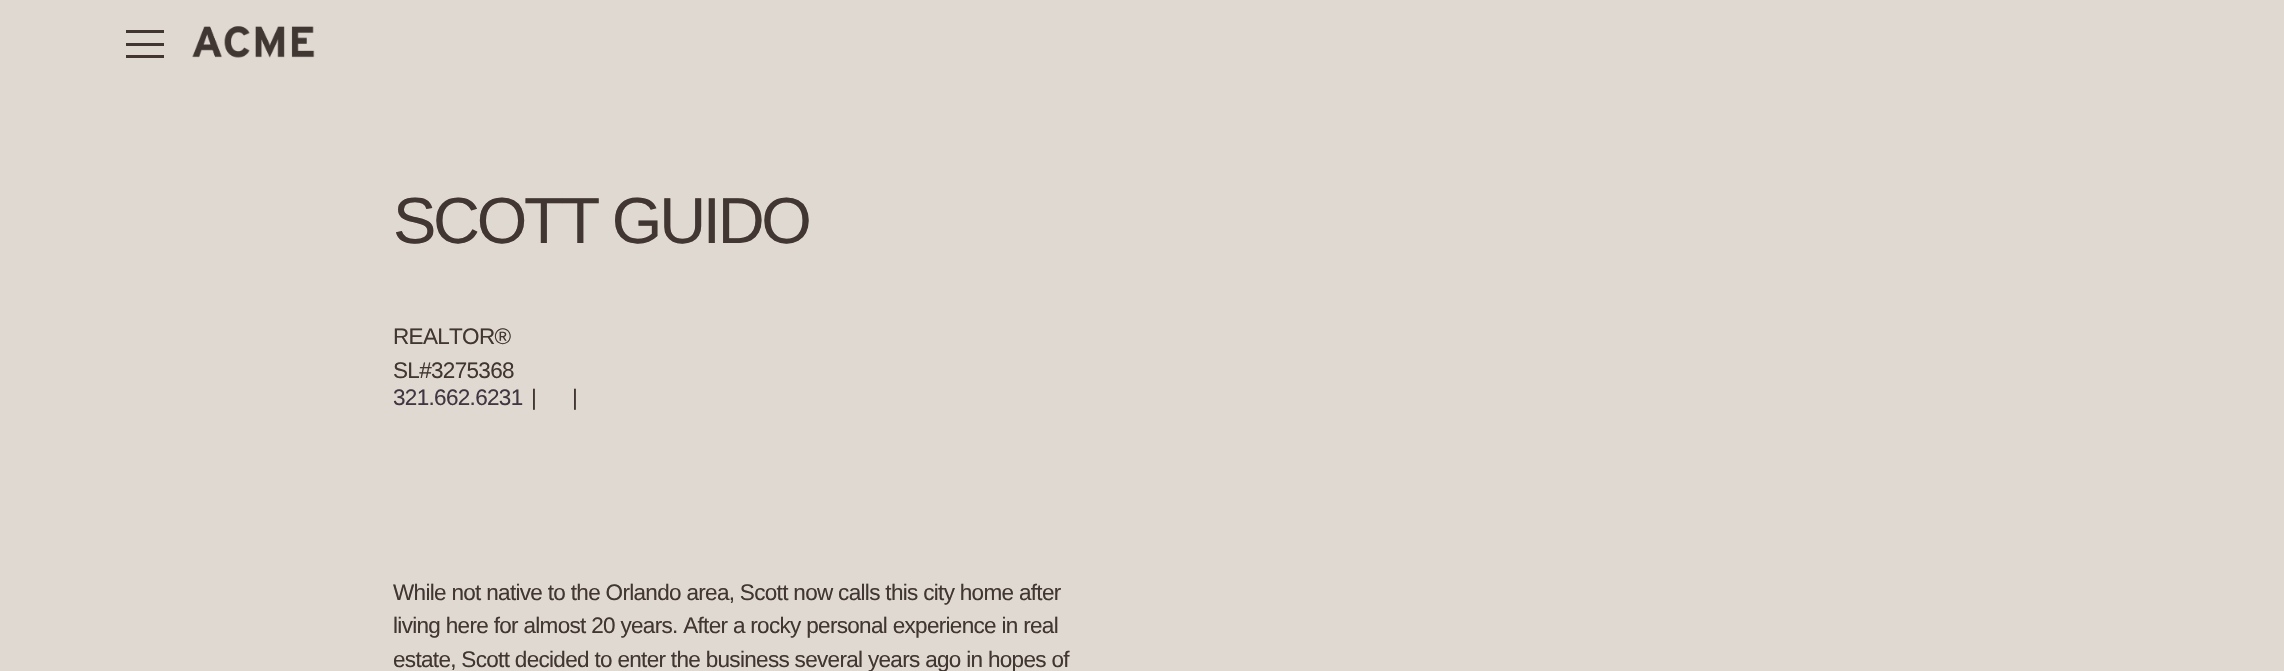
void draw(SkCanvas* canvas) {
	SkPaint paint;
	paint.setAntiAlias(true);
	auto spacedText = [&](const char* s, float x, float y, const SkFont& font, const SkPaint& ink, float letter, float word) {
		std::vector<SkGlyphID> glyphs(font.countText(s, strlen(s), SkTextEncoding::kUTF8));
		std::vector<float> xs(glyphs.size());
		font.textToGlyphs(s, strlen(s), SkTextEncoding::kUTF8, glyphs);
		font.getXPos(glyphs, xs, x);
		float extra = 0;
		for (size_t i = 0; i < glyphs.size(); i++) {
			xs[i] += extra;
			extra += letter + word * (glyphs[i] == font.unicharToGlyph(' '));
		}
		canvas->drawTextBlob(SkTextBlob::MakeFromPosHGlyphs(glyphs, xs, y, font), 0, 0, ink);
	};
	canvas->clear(0xffe0d9d1);
	paint.setColor(0xff413631);
	canvas->drawRect(SkRect::MakeXYWH(126, 43, 38, 3), paint);
	canvas->drawRect(SkRect::MakeXYWH(126, 30, 38, 3), paint);
	canvas->drawRect(SkRect::MakeXYWH(126, 55, 38, 3), paint);
	canvas->drawImageRect(SkImages::DeferredFromEncodedData(SkData::MakeFromFileName("img1.png")), SkRect::MakeXYWH(192, 26, 123, 32), SkSamplingOptions());
	SkFont f1(fontMgr->matchFamilyStyle("Liberation Sans", SkFontStyle::Normal()), 65);
	f1.setSubpixel(true);
	spacedText("SCOTT GUIDO", 393, 243, f1, paint, -3.25, 0);
	SkFont f2(fontMgr->matchFamilyStyle("Liberation Sans", SkFontStyle::Normal()), 22.5);
	f2.setSubpixel(true);
	spacedText("REALTOR®", 393, 344, f2, paint, -0.68, 0);
	spacedText("SL#3275368", 393, 378, f2, paint, -0.68, 0);
	paint.setColor(0xff413641);
	spacedText("321.662.6231", 393, 405, f2, paint, -0.68, 0);
	paint.setColor(0xff413631);
	spacedText("|", 531, 405, f2, paint, -0.68, 0);
	spacedText("|", 572, 405, f2, paint, -0.68, 0);
	spacedText("While not native to the Orlando area, Scott now calls this city home after", 393, 600, f2, paint, -0.68, 0);
	spacedText("living here for almost 20 years. After a rocky personal experience in real", 393, 633, f2, paint, -0.68, 0);
	spacedText("estate, Scott decided to enter the business several years ago in hopes of", 393, 667, f2, paint, -0.68, 0);
}
